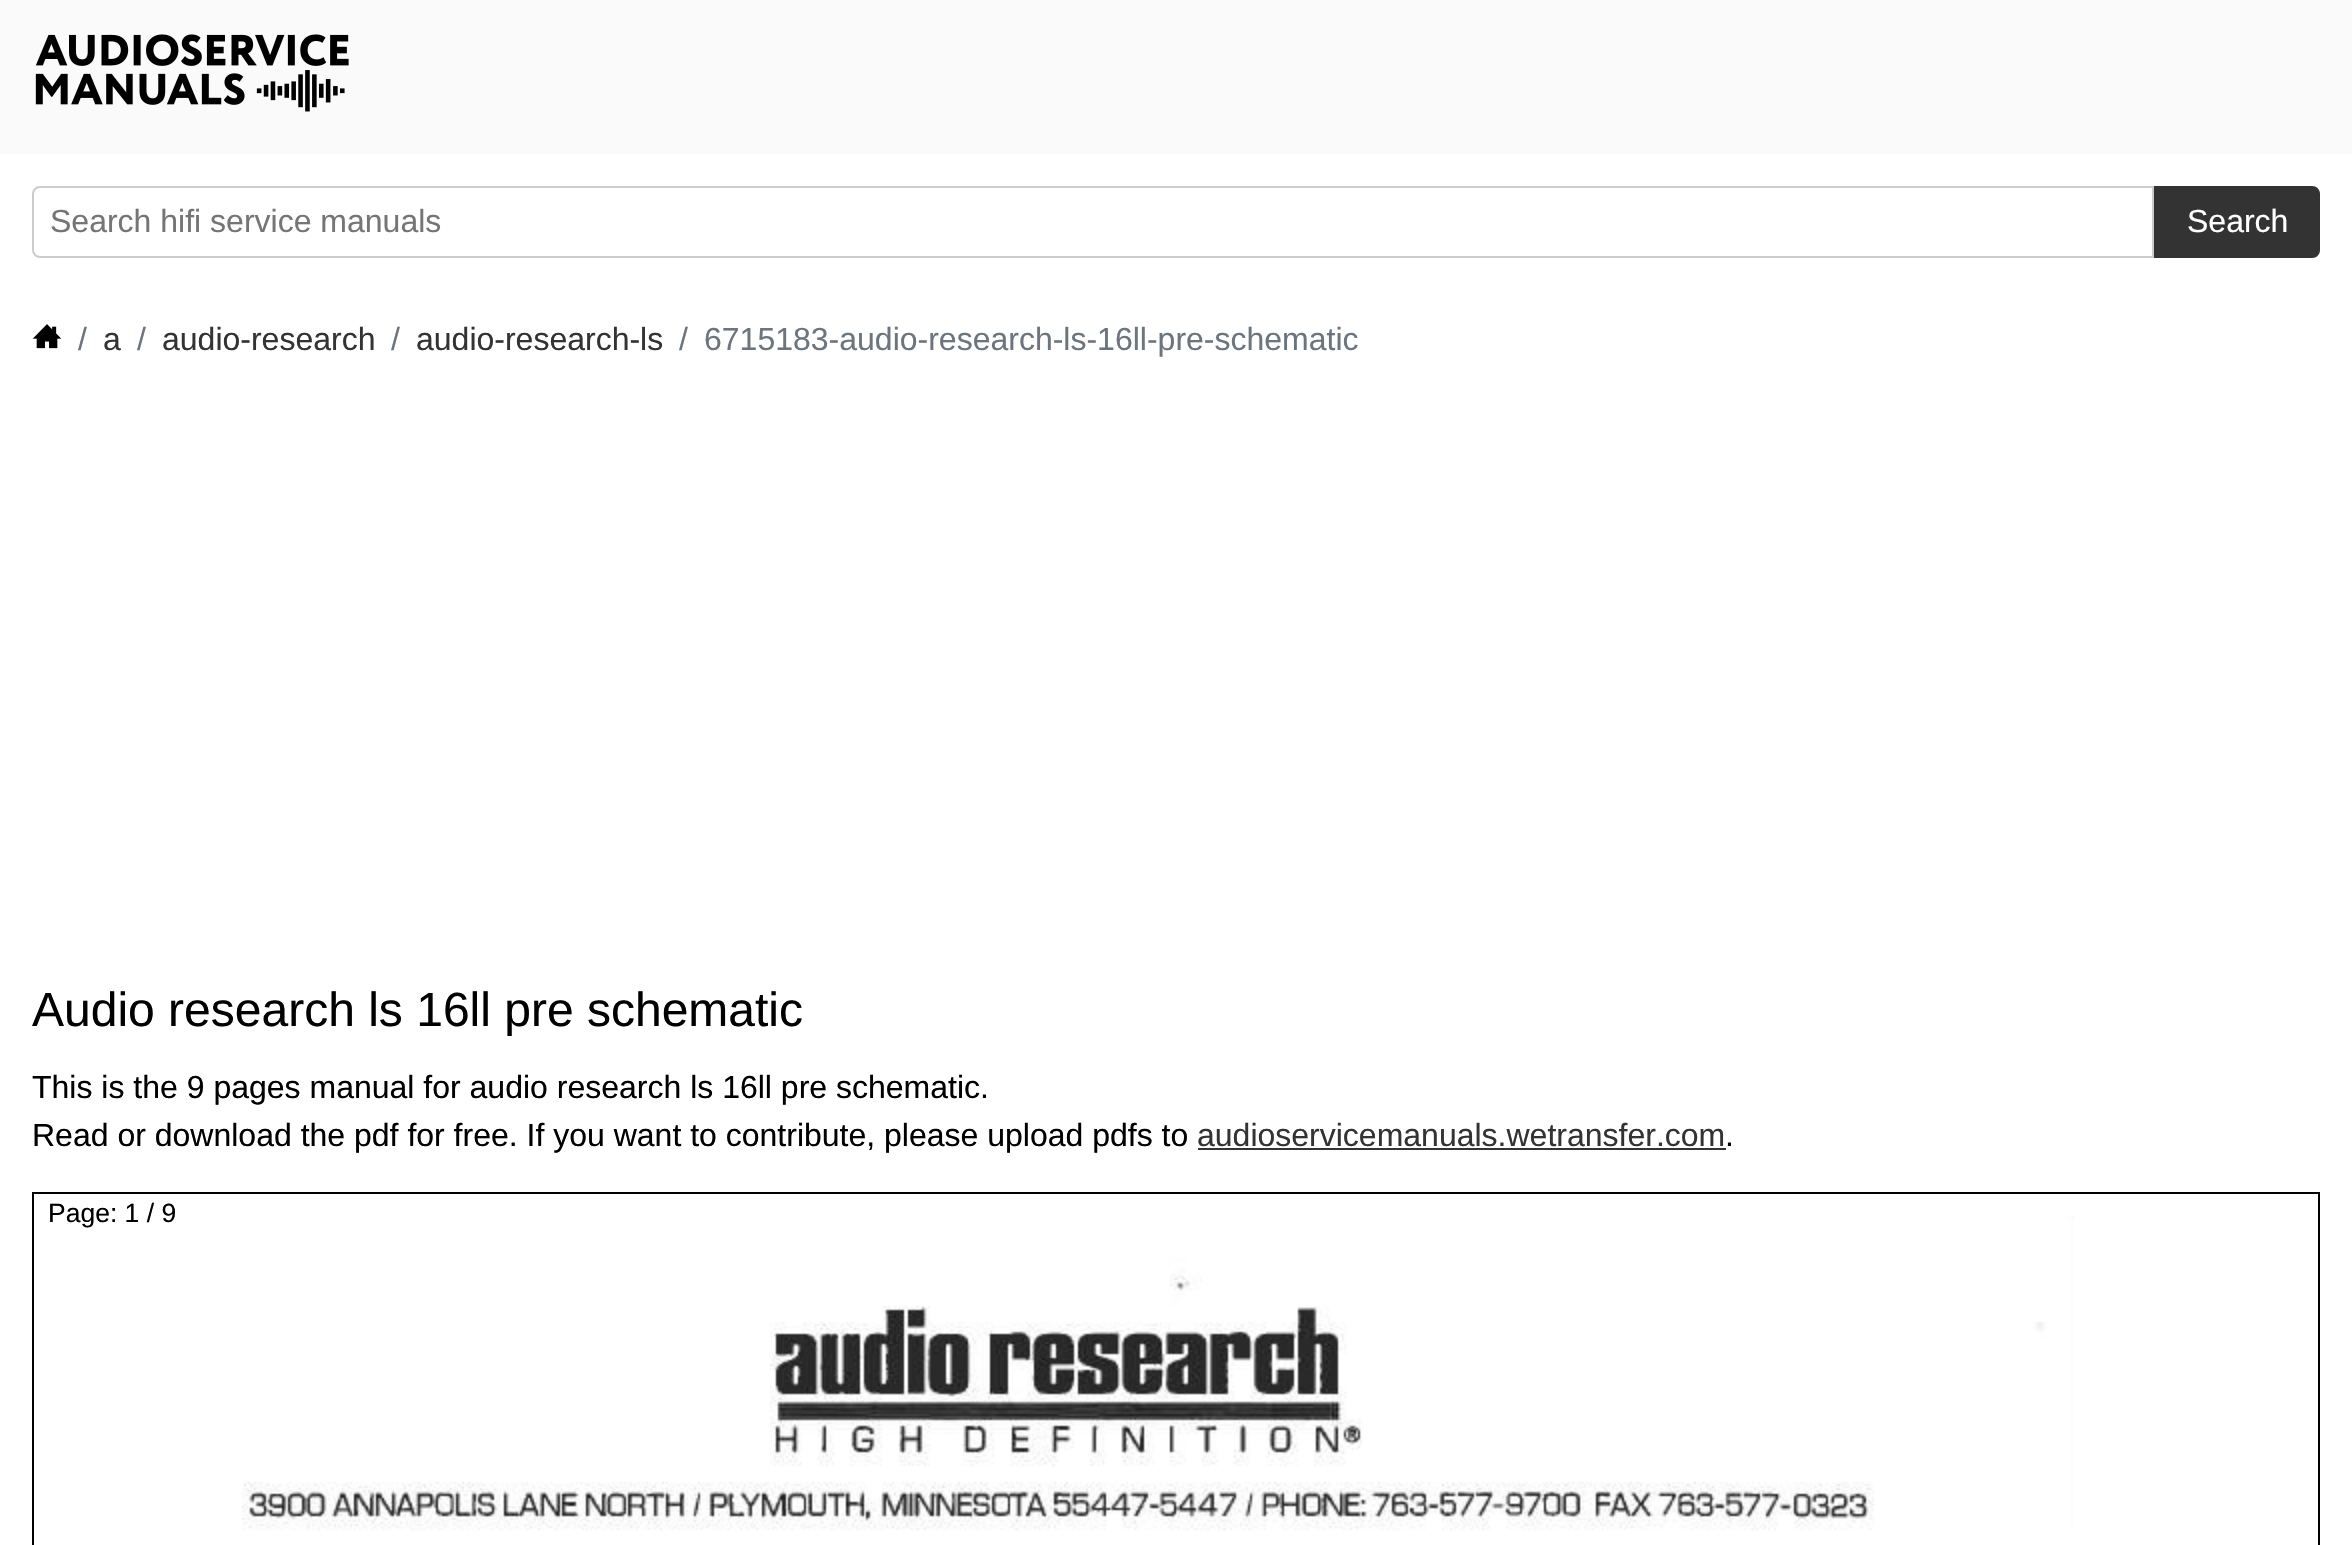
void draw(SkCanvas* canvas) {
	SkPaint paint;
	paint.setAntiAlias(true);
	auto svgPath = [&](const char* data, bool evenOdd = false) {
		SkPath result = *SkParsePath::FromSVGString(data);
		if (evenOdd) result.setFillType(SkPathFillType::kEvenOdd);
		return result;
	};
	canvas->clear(0xffffffff);
	paint.setColor(0xfffafafa);
	canvas->drawRect(SkRect::MakeXYWH(0, 0, 2352, 154), paint);
	canvas->drawImageRect(SkImages::DeferredFromEncodedData(SkData::MakeFromFileName("img1.png")), SkRect::MakeXYWH(35, 34, 314, 78), SkSamplingOptions());
	paint.setStroke(true);
	paint.setStrokeWidth(2);
	paint.setColor(0xffcccccc);
	canvas->drawPath(svgPath("M40 187H2153V257H40C36 257 33 254 33 250V194C33 190 36 187 40 187Z"), paint);
	SkFont f1(fontMgr->matchFamilyStyle("Liberation Sans", SkFontStyle::Normal()), 32);
	f1.setSubpixel(true);
	paint.setStroke(false);
	paint.setColor(0xff757575);
	canvas->drawString("Search hifi service manuals", 50, 232, f1, paint);
	paint.setColor(0xff333333);
	canvas->drawPath(svgPath("M2154 186H2312C2316.5 186 2320 189.5 2320 194V250C2320 254.5 2316.5 258 2312 258H2154Z"), paint);
	paint.setColor(0xffffffff);
	canvas->drawString("Search", 2187, 232, f1, paint);
	canvas->drawImageRect(SkImages::DeferredFromEncodedData(SkData::MakeFromFileName("img2.png")), SkRect::MakeXYWH(32, 324, 30, 25), SkSamplingOptions());
	paint.setColor(0xff6c757d);
	canvas->drawString("/", 78, 350, f1, paint);
	paint.setColor(0xff333333);
	canvas->drawString("a", 103, 350, f1, paint);
	paint.setColor(0xff6c757d);
	canvas->drawString("/", 137, 350, f1, paint);
	paint.setColor(0xff333333);
	canvas->drawString("audio-research", 162, 350, f1, paint);
	paint.setColor(0xff6c757d);
	canvas->drawString("/", 391, 350, f1, paint);
	paint.setColor(0xff333333);
	canvas->drawString("audio-research-ls", 416, 350, f1, paint);
	paint.setColor(0xff6c757d);
	canvas->drawString("/", 679, 350, f1, paint);
	canvas->drawString("6715183-audio-research-ls-16ll-pre-schematic", 704, 350, f1, paint);
	SkFont f2(fontMgr->matchFamilyStyle("Liberation Sans", SkFontStyle::Normal()), 48);
	f2.setSubpixel(true);
	paint.setColor(0xff000000);
	canvas->drawString("Audio research ls 16ll pre schematic", 32, 1026, f2, paint);
	canvas->drawString("This is the 9 pages manual for audio research ls 16ll pre schematic.", 32, 1098, f1, paint);
	canvas->drawString("Read or download the pdf for free. If you want to contribute, please upload pdfs to", 32, 1146, f1, paint);
	paint.setColor(0xff333333);
	canvas->drawString("audioservicemanuals.wetransfer.com", 1197, 1146, f1, paint);
	canvas->drawRect(SkRect::MakeXYWH(1198, 1148, 528, 2), paint);
	paint.setColor(0xff000000);
	canvas->drawString(".", 1725, 1146, f1, paint);
	paint.setStroke(true);
	canvas->drawRect(SkRect::MakeXYWH(33, 1193, 2286, 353), paint);
	SkFont f3(fontMgr->matchFamilyStyle("Liberation Sans", SkFontStyle::Normal()), 26.5);
	f3.setSubpixel(true);
	paint.setStroke(false);
	canvas->drawString("Page: 1 / 9", 48, 1222, f3, paint);
	canvas->drawImageRect(SkImages::DeferredFromEncodedData(SkData::MakeFromFileName("img3.png")), SkRect::MakeXYWH(241, 1216, 1833, 315), SkSamplingOptions());
}
